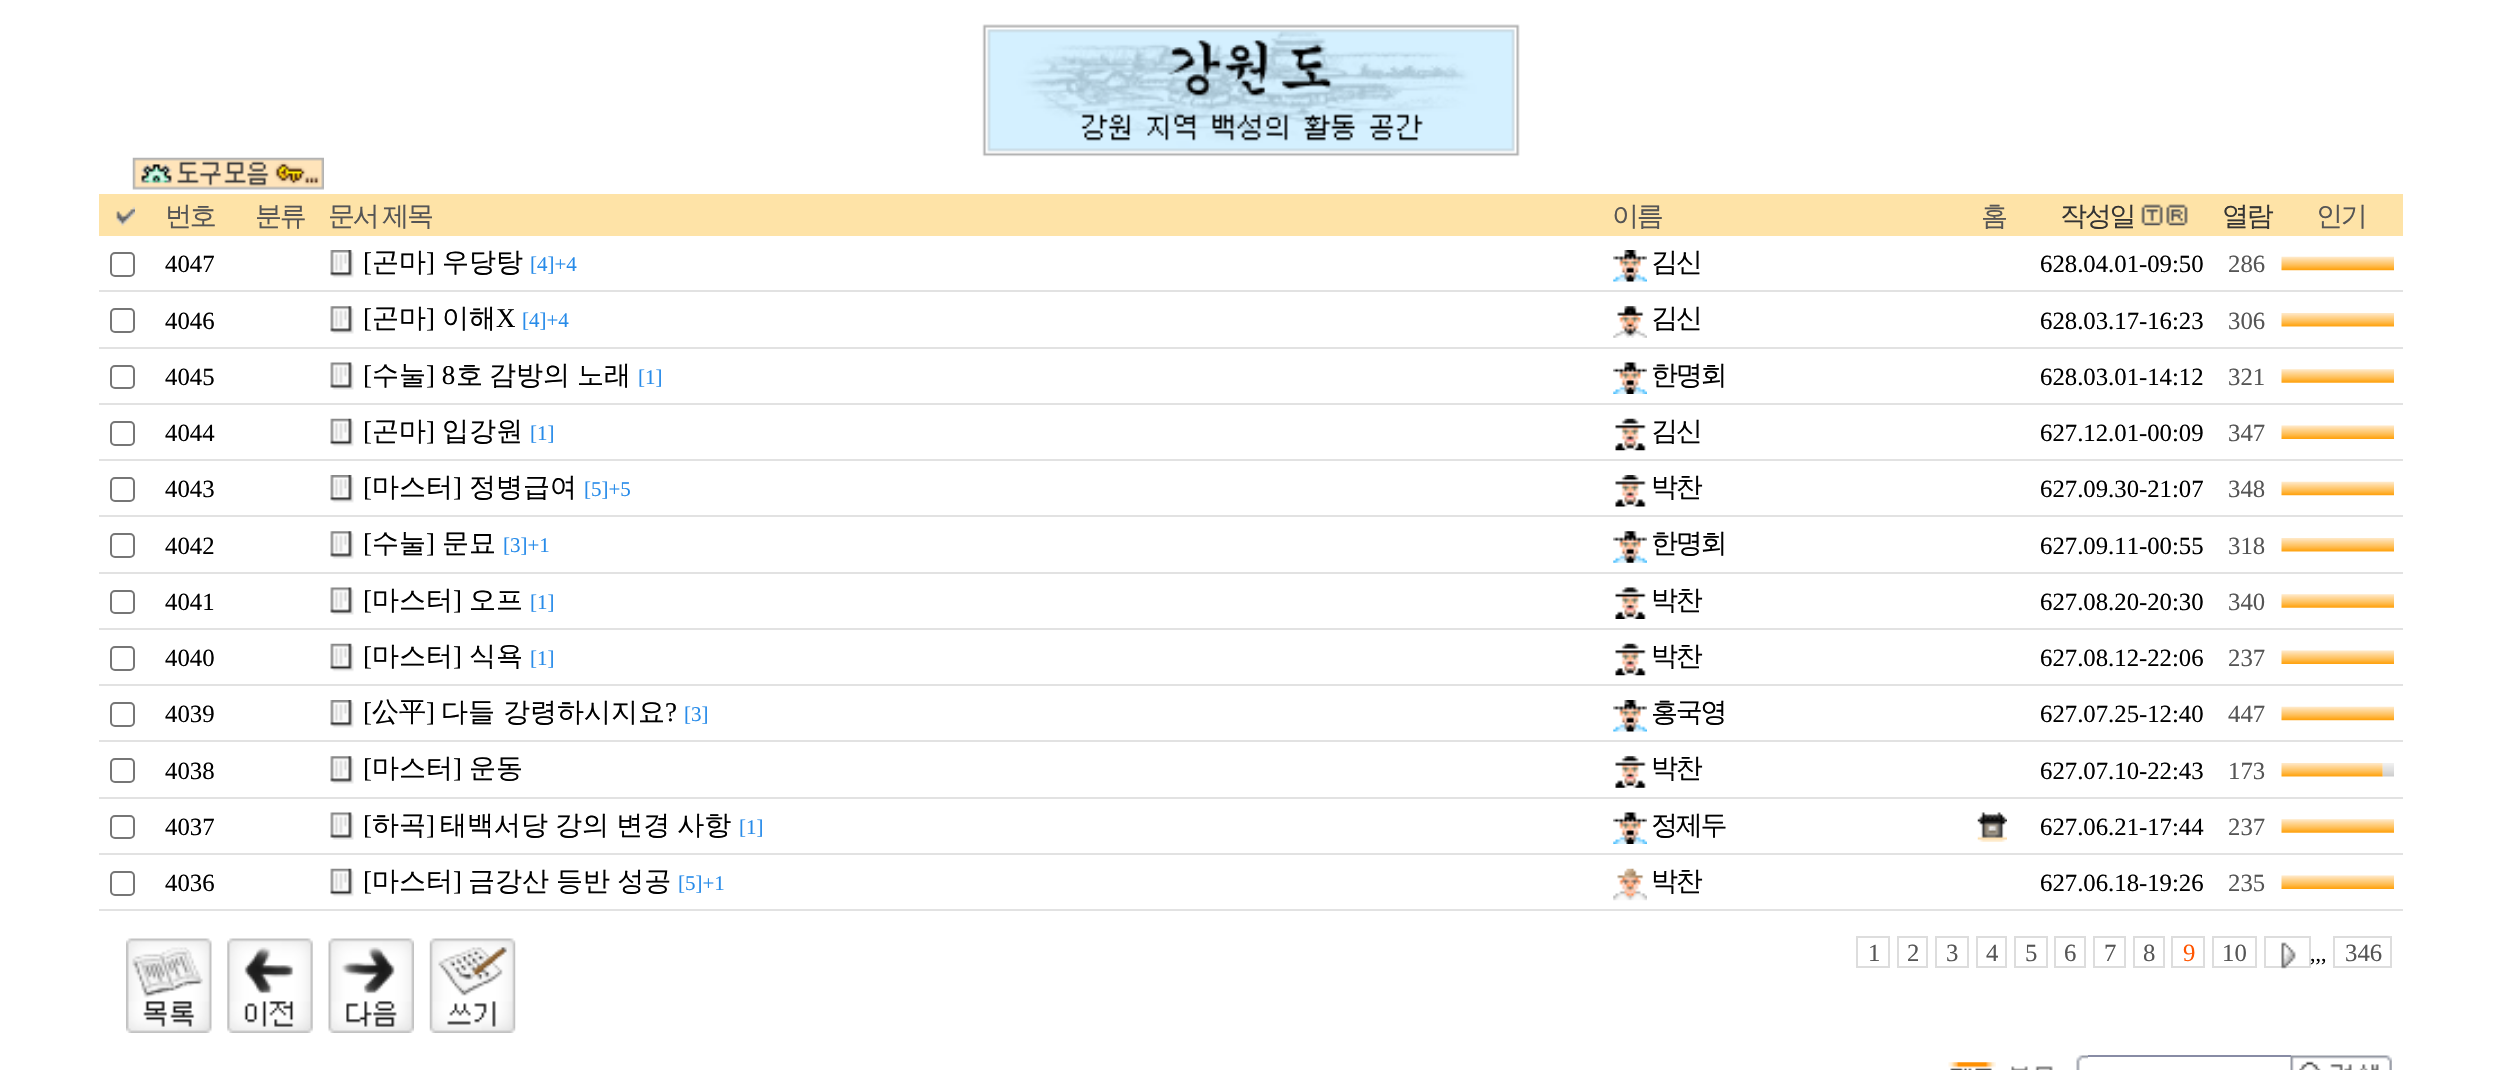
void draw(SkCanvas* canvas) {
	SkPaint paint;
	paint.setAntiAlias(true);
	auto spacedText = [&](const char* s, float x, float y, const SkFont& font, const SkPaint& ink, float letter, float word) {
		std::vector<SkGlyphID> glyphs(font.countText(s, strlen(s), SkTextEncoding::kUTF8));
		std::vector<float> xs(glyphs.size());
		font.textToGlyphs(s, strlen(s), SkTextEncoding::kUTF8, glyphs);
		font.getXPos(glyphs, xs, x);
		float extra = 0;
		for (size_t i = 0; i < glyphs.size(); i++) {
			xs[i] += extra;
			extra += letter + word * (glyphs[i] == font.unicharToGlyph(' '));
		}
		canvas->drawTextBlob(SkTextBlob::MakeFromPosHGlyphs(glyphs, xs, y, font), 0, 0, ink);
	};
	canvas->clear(0xffffffff);
	canvas->drawImageRect(SkImages::DeferredFromEncodedData(SkData::MakeFromFileName("img1.png")), SkRect::MakeXYWH(982, 24, 538, 133), SkSamplingOptions());
	canvas->drawImageRect(SkImages::DeferredFromEncodedData(SkData::MakeFromFileName("img2.png")), SkRect::MakeXYWH(132, 157, 192, 33), SkSamplingOptions());
	paint.setColor(0xfffee3a7);
	canvas->drawRect(SkRect::MakeXYWH(99, 194, 2304, 42), paint);
	canvas->drawImageRect(SkImages::DeferredFromEncodedData(SkData::MakeFromFileName("img3.png")), SkRect::MakeXYWH(116, 206, 19, 20), SkSamplingOptions());
	SkFont f1(fontMgr->matchFamilyStyle("WenQuanYi Zen Hei", SkFontStyle(500, SkFontStyle::kNormal_Width, SkFontStyle::kUpright_Slant)), 27);
	f1.setSubpixel(true);
	paint.setColor(0xff555555);
	spacedText("번호", 165, 225, f1, paint, -2.25, 0);
	spacedText("분류", 255, 225, f1, paint, -2.25, 0);
	spacedText("문서 제목", 328, 225, f1, paint, -2.25, -1);
	spacedText("이름", 1612, 225, f1, paint, -2.25, 0);
	spacedText("홈", 1981, 225, f1, paint, -2.25, 0);
	paint.setColor(0xff333333);
	spacedText("작성일", 2060, 225, f1, paint, -2.25, 0);
	canvas->drawImageRect(SkImages::DeferredFromEncodedData(SkData::MakeFromFileName("img4.png")), SkRect::MakeXYWH(2141, 204, 22, 22), SkSamplingOptions());
	canvas->drawImageRect(SkImages::DeferredFromEncodedData(SkData::MakeFromFileName("img5.png")), SkRect::MakeXYWH(2166, 204, 22, 22), SkSamplingOptions());
	spacedText("열람", 2222, 225, f1, paint, -2.25, 0);
	paint.setColor(0xff555555);
	spacedText("인기", 2316, 225, f1, paint, -2.25, 0);
	paint.setStroke(true);
	paint.setStrokeWidth(2);
	paint.setColor(0xff767676);
	canvas->drawRoundRect(SkRect::MakeXYWH(111, 253, 23, 23), 4, 4, paint);
	SkFont f2(fontMgr->matchFamilyStyle("Liberation Serif", SkFontStyle::Normal()), 24.75);
	f2.setSubpixel(true);
	paint.setStroke(false);
	paint.setColor(0xff000000);
	canvas->drawString("4047", 165, 272, f2, paint);
	canvas->drawImageRect(SkImages::DeferredFromEncodedData(SkData::MakeFromFileName("img6.png")), SkRect::MakeXYWH(330, 250, 24, 28), SkSamplingOptions());
	SkFont f3(fontMgr->matchFamilyStyle("Liberation Serif", SkFontStyle::Normal()), 27);
	f3.setSubpixel(true);
	canvas->drawString("[", 363, 271, f3, paint);
	canvas->drawString("곤마", 372, 271, f1, paint);
	canvas->drawString("]", 426, 271, f3, paint);
	canvas->drawString("우당탕", 442, 271, f1, paint);
	SkFont f4(fontMgr->matchFamilyStyle("Liberation Serif", SkFontStyle::Normal()), 21);
	f4.setSubpixel(true);
	paint.setColor(0xff278be9);
	canvas->drawString("[4]+4", 530, 271, f4, paint);
	canvas->drawImageRect(SkImages::DeferredFromEncodedData(SkData::MakeFromFileName("img7.png")), SkRect::MakeXYWH(1613, 250, 34, 32), SkSamplingOptions());
	paint.setColor(0xff000000);
	spacedText("김신", 1651, 271, f1, paint, -2.25, 0);
	canvas->drawString("628.04.01-09:50", 2040, 272, f2, paint);
	paint.setColor(0xff555555);
	canvas->drawString("286", 2228, 272, f2, paint);
	canvas->drawImageRect(SkImages::DeferredFromEncodedData(SkData::MakeFromFileName("img8.png")), SkRect::MakeXYWH(2281, 256, 113, 15), SkSamplingOptions());
	paint.setColor(0xffe2e2e2);
	canvas->drawRect(SkRect::MakeXYWH(99, 290, 2304, 2), paint);
	paint.setStroke(true);
	paint.setColor(0xff767676);
	canvas->drawRoundRect(SkRect::MakeXYWH(111, 309, 23, 23), 4, 4, paint);
	paint.setStroke(false);
	paint.setColor(0xff000000);
	canvas->drawString("4046", 165, 329, f2, paint);
	canvas->drawImageRect(SkImages::DeferredFromEncodedData(SkData::MakeFromFileName("img9.png")), SkRect::MakeXYWH(330, 306, 24, 28), SkSamplingOptions());
	canvas->drawString("[", 363, 327, f3, paint);
	canvas->drawString("곤마", 372, 327, f1, paint);
	canvas->drawString("]", 426, 327, f3, paint);
	canvas->drawString("이해", 442, 327, f1, paint);
	canvas->drawString("X", 496, 327, f3, paint);
	paint.setColor(0xff278be9);
	canvas->drawString("[4]+4", 522, 327, f4, paint);
	canvas->drawImageRect(SkImages::DeferredFromEncodedData(SkData::MakeFromFileName("img10.png")), SkRect::MakeXYWH(1613, 306, 34, 32), SkSamplingOptions());
	paint.setColor(0xff000000);
	spacedText("김신", 1651, 327, f1, paint, -2.25, 0);
	canvas->drawString("628.03.17-16:23", 2040, 329, f2, paint);
	paint.setColor(0xff555555);
	canvas->drawString("306", 2228, 329, f2, paint);
	canvas->drawImageRect(SkImages::DeferredFromEncodedData(SkData::MakeFromFileName("img11.png")), SkRect::MakeXYWH(2281, 313, 113, 14), SkSamplingOptions());
	paint.setColor(0xffe2e2e2);
	canvas->drawRect(SkRect::MakeXYWH(99, 347, 2304, 2), paint);
	paint.setStroke(true);
	paint.setColor(0xff767676);
	canvas->drawRoundRect(SkRect::MakeXYWH(111, 366, 23, 22), 4, 4, paint);
	paint.setStroke(false);
	paint.setColor(0xff000000);
	canvas->drawString("4045", 165, 385, f2, paint);
	canvas->drawImageRect(SkImages::DeferredFromEncodedData(SkData::MakeFromFileName("img12.png")), SkRect::MakeXYWH(330, 362, 24, 28), SkSamplingOptions());
	canvas->drawString("[", 363, 384, f3, paint);
	canvas->drawString("수눌", 372, 384, f1, paint);
	canvas->drawString("] 8", 426, 384, f3, paint);
	canvas->drawString("호", 456, 384, f1, paint);
	canvas->drawString("감방의", 489, 384, f1, paint);
	canvas->drawString("노래", 577, 384, f1, paint);
	paint.setColor(0xff278be9);
	canvas->drawString("[1]", 638, 384, f4, paint);
	canvas->drawImageRect(SkImages::DeferredFromEncodedData(SkData::MakeFromFileName("img13.png")), SkRect::MakeXYWH(1613, 362, 34, 32), SkSamplingOptions());
	paint.setColor(0xff000000);
	spacedText("한명회", 1651, 384, f1, paint, -2.25, 0);
	canvas->drawString("628.03.01-14:12", 2040, 385, f2, paint);
	paint.setColor(0xff555555);
	canvas->drawString("321", 2228, 385, f2, paint);
	canvas->drawImageRect(SkImages::DeferredFromEncodedData(SkData::MakeFromFileName("img14.png")), SkRect::MakeXYWH(2281, 369, 113, 14), SkSamplingOptions());
	paint.setColor(0xffe2e2e2);
	canvas->drawRect(SkRect::MakeXYWH(99, 403, 2304, 2), paint);
	paint.setStroke(true);
	paint.setColor(0xff767676);
	canvas->drawRoundRect(SkRect::MakeXYWH(111, 422, 23, 23), 4, 4, paint);
	paint.setStroke(false);
	paint.setColor(0xff000000);
	canvas->drawString("4044", 165, 441, f2, paint);
	canvas->drawImageRect(SkImages::DeferredFromEncodedData(SkData::MakeFromFileName("img15.png")), SkRect::MakeXYWH(330, 418, 24, 29), SkSamplingOptions());
	canvas->drawString("[", 363, 440, f3, paint);
	canvas->drawString("곤마", 372, 440, f1, paint);
	canvas->drawString("]", 426, 440, f3, paint);
	canvas->drawString("입강원", 442, 440, f1, paint);
	paint.setColor(0xff278be9);
	canvas->drawString("[1]", 530, 440, f4, paint);
	canvas->drawImageRect(SkImages::DeferredFromEncodedData(SkData::MakeFromFileName("img16.png")), SkRect::MakeXYWH(1615, 418, 31, 33), SkSamplingOptions());
	paint.setColor(0xff000000);
	spacedText("김신", 1651, 440, f1, paint, -2.25, 0);
	canvas->drawString("627.12.01-00:09", 2040, 441, f2, paint);
	paint.setColor(0xff555555);
	canvas->drawString("347", 2228, 441, f2, paint);
	canvas->drawImageRect(SkImages::DeferredFromEncodedData(SkData::MakeFromFileName("img17.png")), SkRect::MakeXYWH(2281, 425, 113, 14), SkSamplingOptions());
	paint.setColor(0xffe2e2e2);
	canvas->drawRect(SkRect::MakeXYWH(99, 459, 2304, 2), paint);
	paint.setStroke(true);
	paint.setColor(0xff767676);
	canvas->drawRoundRect(SkRect::MakeXYWH(111, 478, 23, 23), 4, 4, paint);
	paint.setStroke(false);
	paint.setColor(0xff000000);
	canvas->drawString("4043", 165, 497, f2, paint);
	canvas->drawImageRect(SkImages::DeferredFromEncodedData(SkData::MakeFromFileName("img6.png")), SkRect::MakeXYWH(330, 475, 24, 28), SkSamplingOptions());
	canvas->drawString("[", 363, 496, f3, paint);
	canvas->drawString("마스터", 372, 496, f1, paint);
	canvas->drawString("]", 453, 496, f3, paint);
	canvas->drawString("정병급여", 469, 496, f1, paint);
	paint.setColor(0xff278be9);
	canvas->drawString("[5]+5", 584, 496, f4, paint);
	canvas->drawImageRect(SkImages::DeferredFromEncodedData(SkData::MakeFromFileName("img18.png")), SkRect::MakeXYWH(1615, 475, 31, 32), SkSamplingOptions());
	paint.setColor(0xff000000);
	spacedText("박찬", 1651, 496, f1, paint, -2.25, 0);
	canvas->drawString("627.09.30-21:07", 2040, 497, f2, paint);
	paint.setColor(0xff555555);
	canvas->drawString("348", 2228, 497, f2, paint);
	canvas->drawImageRect(SkImages::DeferredFromEncodedData(SkData::MakeFromFileName("img8.png")), SkRect::MakeXYWH(2281, 481, 113, 15), SkSamplingOptions());
	paint.setColor(0xffe2e2e2);
	canvas->drawRect(SkRect::MakeXYWH(99, 515, 2304, 2), paint);
	paint.setStroke(true);
	paint.setColor(0xff767676);
	canvas->drawRoundRect(SkRect::MakeXYWH(111, 534, 23, 23), 4, 4, paint);
	paint.setStroke(false);
	paint.setColor(0xff000000);
	canvas->drawString("4042", 165, 554, f2, paint);
	canvas->drawImageRect(SkImages::DeferredFromEncodedData(SkData::MakeFromFileName("img9.png")), SkRect::MakeXYWH(330, 531, 24, 28), SkSamplingOptions());
	canvas->drawString("[", 363, 552, f3, paint);
	canvas->drawString("수눌", 372, 552, f1, paint);
	canvas->drawString("]", 426, 552, f3, paint);
	canvas->drawString("문묘", 442, 552, f1, paint);
	paint.setColor(0xff278be9);
	canvas->drawString("[3]+1", 503, 552, f4, paint);
	canvas->drawImageRect(SkImages::DeferredFromEncodedData(SkData::MakeFromFileName("img19.png")), SkRect::MakeXYWH(1613, 531, 34, 32), SkSamplingOptions());
	paint.setColor(0xff000000);
	spacedText("한명회", 1651, 552, f1, paint, -2.25, 0);
	canvas->drawString("627.09.11-00:55", 2040, 554, f2, paint);
	paint.setColor(0xff555555);
	canvas->drawString("318", 2228, 554, f2, paint);
	canvas->drawImageRect(SkImages::DeferredFromEncodedData(SkData::MakeFromFileName("img11.png")), SkRect::MakeXYWH(2281, 538, 113, 14), SkSamplingOptions());
	paint.setColor(0xffe2e2e2);
	canvas->drawRect(SkRect::MakeXYWH(99, 572, 2304, 2), paint);
	paint.setStroke(true);
	paint.setColor(0xff767676);
	canvas->drawRoundRect(SkRect::MakeXYWH(111, 591, 23, 22), 4, 4, paint);
	paint.setStroke(false);
	paint.setColor(0xff000000);
	canvas->drawString("4041", 165, 610, f2, paint);
	canvas->drawImageRect(SkImages::DeferredFromEncodedData(SkData::MakeFromFileName("img12.png")), SkRect::MakeXYWH(330, 587, 24, 28), SkSamplingOptions());
	canvas->drawString("[", 363, 609, f3, paint);
	canvas->drawString("마스터", 372, 609, f1, paint);
	canvas->drawString("]", 453, 609, f3, paint);
	canvas->drawString("오프", 469, 609, f1, paint);
	paint.setColor(0xff278be9);
	canvas->drawString("[1]", 530, 609, f4, paint);
	canvas->drawImageRect(SkImages::DeferredFromEncodedData(SkData::MakeFromFileName("img20.png")), SkRect::MakeXYWH(1615, 587, 31, 32), SkSamplingOptions());
	paint.setColor(0xff000000);
	spacedText("박찬", 1651, 609, f1, paint, -2.25, 0);
	canvas->drawString("627.08.20-20:30", 2040, 610, f2, paint);
	paint.setColor(0xff555555);
	canvas->drawString("340", 2228, 610, f2, paint);
	canvas->drawImageRect(SkImages::DeferredFromEncodedData(SkData::MakeFromFileName("img14.png")), SkRect::MakeXYWH(2281, 594, 113, 14), SkSamplingOptions());
	paint.setColor(0xffe2e2e2);
	canvas->drawRect(SkRect::MakeXYWH(99, 628, 2304, 2), paint);
	paint.setStroke(true);
	paint.setColor(0xff767676);
	canvas->drawRoundRect(SkRect::MakeXYWH(111, 647, 23, 23), 4, 4, paint);
	paint.setStroke(false);
	paint.setColor(0xff000000);
	canvas->drawString("4040", 165, 666, f2, paint);
	canvas->drawImageRect(SkImages::DeferredFromEncodedData(SkData::MakeFromFileName("img15.png")), SkRect::MakeXYWH(330, 643, 24, 29), SkSamplingOptions());
	canvas->drawString("[", 363, 665, f3, paint);
	canvas->drawString("마스터", 372, 665, f1, paint);
	canvas->drawString("]", 453, 665, f3, paint);
	canvas->drawString("식욕", 469, 665, f1, paint);
	paint.setColor(0xff278be9);
	canvas->drawString("[1]", 530, 665, f4, paint);
	canvas->drawImageRect(SkImages::DeferredFromEncodedData(SkData::MakeFromFileName("img16.png")), SkRect::MakeXYWH(1615, 643, 31, 33), SkSamplingOptions());
	paint.setColor(0xff000000);
	spacedText("박찬", 1651, 665, f1, paint, -2.25, 0);
	canvas->drawString("627.08.12-22:06", 2040, 666, f2, paint);
	paint.setColor(0xff555555);
	canvas->drawString("237", 2228, 666, f2, paint);
	canvas->drawImageRect(SkImages::DeferredFromEncodedData(SkData::MakeFromFileName("img17.png")), SkRect::MakeXYWH(2281, 650, 113, 14), SkSamplingOptions());
	paint.setColor(0xffe2e2e2);
	canvas->drawRect(SkRect::MakeXYWH(99, 684, 2304, 2), paint);
	paint.setStroke(true);
	paint.setColor(0xff767676);
	canvas->drawRoundRect(SkRect::MakeXYWH(111, 703, 23, 23), 4, 4, paint);
	paint.setStroke(false);
	paint.setColor(0xff000000);
	canvas->drawString("4039", 165, 722, f2, paint);
	canvas->drawImageRect(SkImages::DeferredFromEncodedData(SkData::MakeFromFileName("img6.png")), SkRect::MakeXYWH(330, 700, 24, 28), SkSamplingOptions());
	canvas->drawString("[", 363, 721, f3, paint);
	canvas->drawString("公平", 372, 721, f1, paint);
	canvas->drawString("]", 426, 721, f3, paint);
	canvas->drawString("다들 강령하시지요", 441, 721, f1, paint);
	canvas->drawString("?", 665, 721, f3, paint);
	paint.setColor(0xff278be9);
	canvas->drawString("[3]", 684, 721, f4, paint);
	canvas->drawImageRect(SkImages::DeferredFromEncodedData(SkData::MakeFromFileName("img7.png")), SkRect::MakeXYWH(1613, 700, 34, 32), SkSamplingOptions());
	paint.setColor(0xff000000);
	spacedText("홍국영", 1651, 721, f1, paint, -2.25, 0);
	canvas->drawString("627.07.25-12:40", 2040, 722, f2, paint);
	paint.setColor(0xff555555);
	canvas->drawString("447", 2228, 722, f2, paint);
	canvas->drawImageRect(SkImages::DeferredFromEncodedData(SkData::MakeFromFileName("img8.png")), SkRect::MakeXYWH(2281, 706, 113, 15), SkSamplingOptions());
	paint.setColor(0xffe2e2e2);
	canvas->drawRect(SkRect::MakeXYWH(99, 740, 2304, 2), paint);
	paint.setStroke(true);
	paint.setColor(0xff767676);
	canvas->drawRoundRect(SkRect::MakeXYWH(111, 759, 23, 23), 4, 4, paint);
	paint.setStroke(false);
	paint.setColor(0xff000000);
	canvas->drawString("4038", 165, 779, f2, paint);
	canvas->drawImageRect(SkImages::DeferredFromEncodedData(SkData::MakeFromFileName("img9.png")), SkRect::MakeXYWH(330, 756, 24, 28), SkSamplingOptions());
	canvas->drawString("[", 363, 777, f3, paint);
	canvas->drawString("마스터", 372, 777, f1, paint);
	canvas->drawString("]", 453, 777, f3, paint);
	canvas->drawString("운동", 469, 777, f1, paint);
	canvas->drawImageRect(SkImages::DeferredFromEncodedData(SkData::MakeFromFileName("img21.png")), SkRect::MakeXYWH(1615, 756, 31, 32), SkSamplingOptions());
	spacedText("박찬", 1651, 777, f1, paint, -2.25, 0);
	canvas->drawString("627.07.10-22:43", 2040, 779, f2, paint);
	paint.setColor(0xff555555);
	canvas->drawString("173", 2228, 779, f2, paint);
	canvas->drawImageRect(SkImages::DeferredFromEncodedData(SkData::MakeFromFileName("img22.png")), SkRect::MakeXYWH(2281, 763, 102, 14), SkSamplingOptions());
	canvas->drawImageRect(SkImages::DeferredFromEncodedData(SkData::MakeFromFileName("img23.png")), SkRect::MakeXYWH(2382, 763, 12, 14), SkSamplingOptions());
	paint.setColor(0xffe2e2e2);
	canvas->drawRect(SkRect::MakeXYWH(99, 797, 2304, 2), paint);
	paint.setStroke(true);
	paint.setColor(0xff767676);
	canvas->drawRoundRect(SkRect::MakeXYWH(111, 816, 23, 22), 4, 4, paint);
	paint.setStroke(false);
	paint.setColor(0xff000000);
	canvas->drawString("4037", 165, 835, f2, paint);
	canvas->drawImageRect(SkImages::DeferredFromEncodedData(SkData::MakeFromFileName("img24.png")), SkRect::MakeXYWH(330, 812, 24, 28), SkSamplingOptions());
	canvas->drawString("[", 363, 834, f3, paint);
	canvas->drawString("하곡", 372, 834, f1, paint);
	canvas->drawString("]", 426, 834, f3, paint);
	spacedText("태백서당 강의 변경 사항", 440, 834, f1, paint, 0, -1);
	paint.setColor(0xff278be9);
	canvas->drawString("[1]", 739, 834, f4, paint);
	canvas->drawImageRect(SkImages::DeferredFromEncodedData(SkData::MakeFromFileName("img25.png")), SkRect::MakeXYWH(1613, 812, 34, 32), SkSamplingOptions());
	paint.setColor(0xff000000);
	spacedText("정제두", 1651, 834, f1, paint, -2.25, 0);
	canvas->drawImageRect(SkImages::DeferredFromEncodedData(SkData::MakeFromFileName("img26.png")), SkRect::MakeXYWH(1977, 812, 30, 30), SkSamplingOptions());
	canvas->drawString("627.06.21-17:44", 2040, 835, f2, paint);
	paint.setColor(0xff555555);
	canvas->drawString("237", 2228, 835, f2, paint);
	canvas->drawImageRect(SkImages::DeferredFromEncodedData(SkData::MakeFromFileName("img14.png")), SkRect::MakeXYWH(2281, 819, 113, 14), SkSamplingOptions());
	paint.setColor(0xffe2e2e2);
	canvas->drawRect(SkRect::MakeXYWH(99, 853, 2304, 2), paint);
	paint.setStroke(true);
	paint.setColor(0xff767676);
	canvas->drawRoundRect(SkRect::MakeXYWH(111, 872, 23, 23), 4, 4, paint);
	paint.setStroke(false);
	paint.setColor(0xff000000);
	canvas->drawString("4036", 165, 891, f2, paint);
	canvas->drawImageRect(SkImages::DeferredFromEncodedData(SkData::MakeFromFileName("img15.png")), SkRect::MakeXYWH(330, 868, 24, 29), SkSamplingOptions());
	canvas->drawString("[", 363, 890, f3, paint);
	canvas->drawString("마스터", 372, 890, f1, paint);
	canvas->drawString("]", 453, 890, f3, paint);
	spacedText("금강산 등반 성공", 468, 890, f1, paint, 0, -1);
	paint.setColor(0xff278be9);
	canvas->drawString("[5]+1", 678, 890, f4, paint);
	canvas->drawImageRect(SkImages::DeferredFromEncodedData(SkData::MakeFromFileName("img27.png")), SkRect::MakeXYWH(1613, 868, 34, 33), SkSamplingOptions());
	paint.setColor(0xff000000);
	spacedText("박찬", 1651, 890, f1, paint, -2.25, 0);
	canvas->drawString("627.06.18-19:26", 2040, 891, f2, paint);
	paint.setColor(0xff555555);
	canvas->drawString("235", 2228, 891, f2, paint);
	canvas->drawImageRect(SkImages::DeferredFromEncodedData(SkData::MakeFromFileName("img17.png")), SkRect::MakeXYWH(2281, 875, 113, 14), SkSamplingOptions());
	paint.setColor(0xffe2e2e2);
	canvas->drawRect(SkRect::MakeXYWH(99, 909, 2304, 2), paint);
	canvas->drawImageRect(SkImages::DeferredFromEncodedData(SkData::MakeFromFileName("img28.png")), SkRect::MakeXYWH(126, 938, 86, 95), SkSamplingOptions());
	canvas->drawImageRect(SkImages::DeferredFromEncodedData(SkData::MakeFromFileName("img29.png")), SkRect::MakeXYWH(227, 938, 86, 95), SkSamplingOptions());
	canvas->drawImageRect(SkImages::DeferredFromEncodedData(SkData::MakeFromFileName("img30.png")), SkRect::MakeXYWH(328, 938, 86, 95), SkSamplingOptions());
	canvas->drawImageRect(SkImages::DeferredFromEncodedData(SkData::MakeFromFileName("img31.png")), SkRect::MakeXYWH(429, 938, 87, 95), SkSamplingOptions());
	paint.setStroke(true);
	paint.setColor(0xffdddddd);
	canvas->drawRect(SkRect::MakeXYWH(2265, 937, 45, 30), paint);
	canvas->drawRect(SkRect::MakeXYWH(1857, 937, 32, 30), paint);
	paint.setStroke(false);
	paint.setColor(0xff555555);
	canvas->drawString("1", 1868, 961, f2, paint);
	paint.setStroke(true);
	paint.setColor(0xffdddddd);
	canvas->drawRect(SkRect::MakeXYWH(1898, 937, 29, 30), paint);
	paint.setStroke(false);
	paint.setColor(0xff555555);
	canvas->drawString("2", 1907, 961, f2, paint);
	paint.setStroke(true);
	paint.setColor(0xffdddddd);
	canvas->drawRect(SkRect::MakeXYWH(1936, 937, 32, 30), paint);
	paint.setStroke(false);
	paint.setColor(0xff555555);
	canvas->drawString("3", 1946, 961, f2, paint);
	paint.setStroke(true);
	paint.setColor(0xffdddddd);
	canvas->drawRect(SkRect::MakeXYWH(1977, 937, 29, 30), paint);
	paint.setStroke(false);
	paint.setColor(0xff555555);
	canvas->drawString("4", 1986, 961, f2, paint);
	paint.setStroke(true);
	paint.setColor(0xffdddddd);
	canvas->drawRect(SkRect::MakeXYWH(2015, 937, 32, 30), paint);
	paint.setStroke(false);
	paint.setColor(0xff555555);
	canvas->drawString("5", 2025, 961, f2, paint);
	paint.setStroke(true);
	paint.setColor(0xffdddddd);
	canvas->drawRect(SkRect::MakeXYWH(2055, 937, 30, 30), paint);
	paint.setStroke(false);
	paint.setColor(0xff555555);
	canvas->drawString("6", 2064, 961, f2, paint);
	paint.setStroke(true);
	paint.setColor(0xffdddddd);
	canvas->drawRect(SkRect::MakeXYWH(2094, 937, 31, 30), paint);
	paint.setStroke(false);
	paint.setColor(0xff555555);
	canvas->drawString("7", 2104, 961, f2, paint);
	paint.setStroke(true);
	paint.setColor(0xffdddddd);
	canvas->drawRect(SkRect::MakeXYWH(2134, 937, 30, 30), paint);
	paint.setStroke(false);
	paint.setColor(0xff555555);
	canvas->drawString("8", 2143, 961, f2, paint);
	paint.setStroke(true);
	paint.setColor(0xffdddddd);
	canvas->drawRect(SkRect::MakeXYWH(2172, 937, 32, 30), paint);
	paint.setStroke(false);
	paint.setColor(0xffff5500);
	canvas->drawString("9", 2183, 961, f2, paint);
	paint.setStroke(true);
	paint.setColor(0xffdddddd);
	canvas->drawRect(SkRect::MakeXYWH(2213, 937, 43, 30), paint);
	paint.setStroke(false);
	paint.setColor(0xff555555);
	canvas->drawString("10", 2222, 961, f2, paint);
	canvas->drawImageRect(SkImages::DeferredFromEncodedData(SkData::MakeFromFileName("img32.png")), SkRect::MakeXYWH(2281, 942, 15, 27), SkSamplingOptions());
	SkFont f5(fontMgr->matchFamilyStyle("Liberation Serif", SkFontStyle::Normal()), 22);
	f5.setSubpixel(true);
	paint.setColor(0xff000000);
	canvas->drawString(",,,", 2310, 961, f5, paint);
	paint.setStroke(true);
	paint.setColor(0xffdddddd);
	canvas->drawRect(SkRect::MakeXYWH(2334, 937, 57, 30), paint);
	paint.setStroke(false);
	paint.setColor(0xff555555);
	canvas->drawString("346", 2345, 961, f2, paint);
	canvas->drawImageRect(SkImages::DeferredFromEncodedData(SkData::MakeFromFileName("img33.png")), SkRect::MakeXYWH(1948, 1062, 48, 8), SkSamplingOptions());
	canvas->drawImageRect(SkImages::DeferredFromEncodedData(SkData::MakeFromFileName("img34.png")), SkRect::MakeXYWH(2011, 1066, 42, 4), SkSamplingOptions());
	canvas->drawImageRect(SkImages::DeferredFromEncodedData(SkData::MakeFromFileName("img35.png")), SkRect::MakeXYWH(2076, 1055, 12, 15), SkSamplingOptions());
	paint.setColor(0xff888ca5);
	canvas->drawRect(SkRect::MakeXYWH(2088, 1055, 203, 2), paint);
	canvas->drawImageRect(SkImages::DeferredFromEncodedData(SkData::MakeFromFileName("img36.png")), SkRect::MakeXYWH(2290, 1055, 102, 15), SkSamplingOptions());
}
